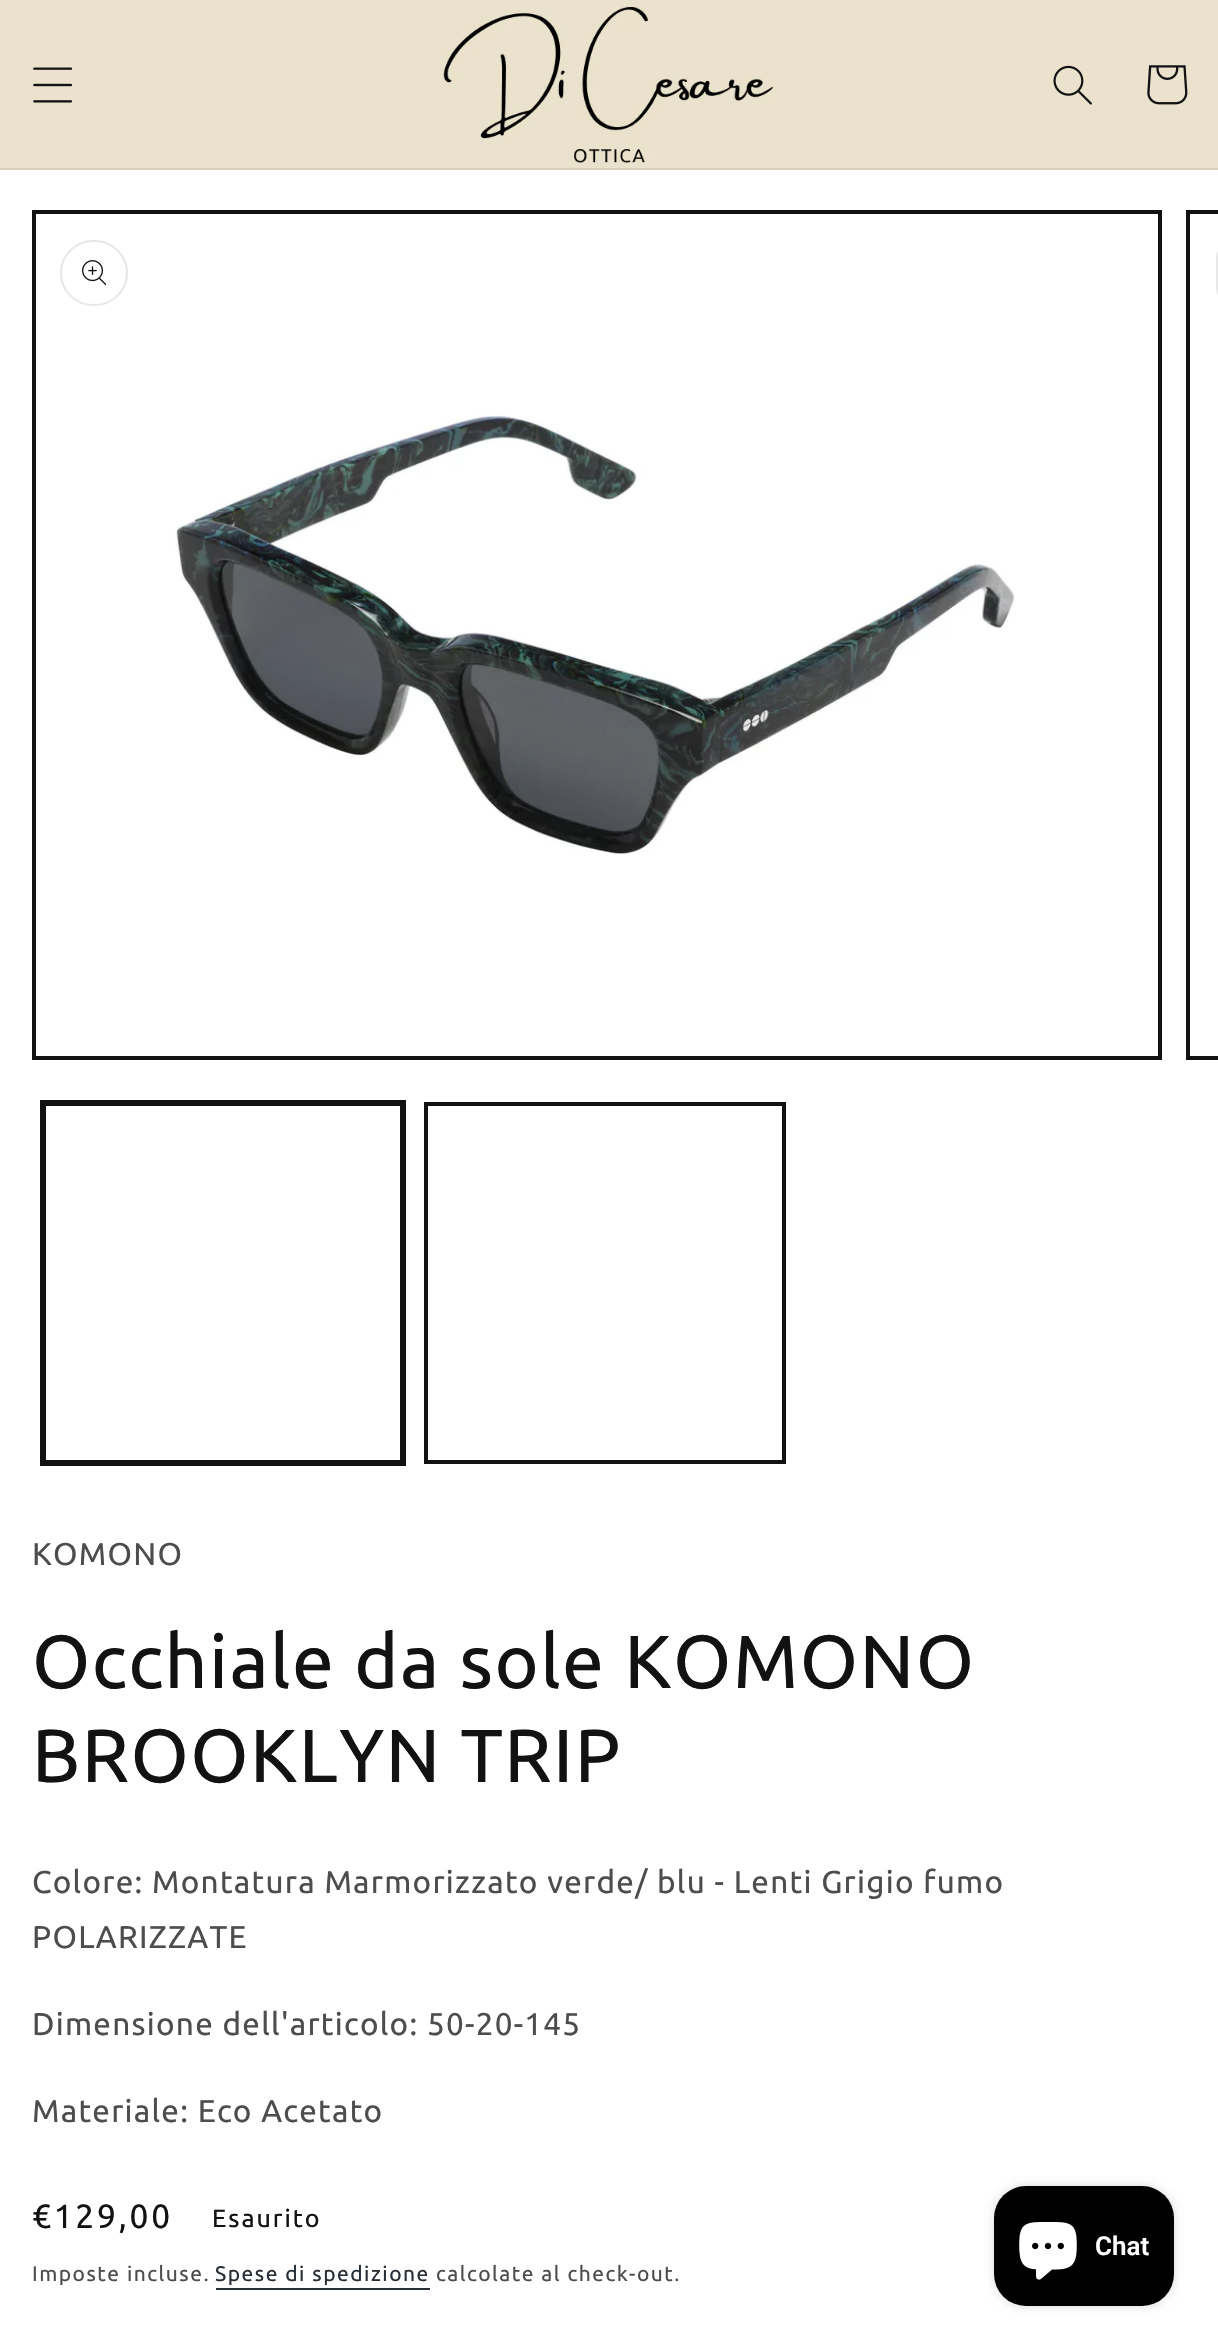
void draw(SkCanvas* canvas) {
	SkPaint paint;
	paint.setAntiAlias(true);
	auto spacedText = [&](const char* s, float x, float y, const SkFont& font, const SkPaint& ink, float letter, float word) {
		std::vector<SkGlyphID> glyphs(font.countText(s, strlen(s), SkTextEncoding::kUTF8));
		std::vector<float> xs(glyphs.size());
		font.textToGlyphs(s, strlen(s), SkTextEncoding::kUTF8, glyphs);
		font.getXPos(glyphs, xs, x);
		float extra = 0;
		for (size_t i = 0; i < glyphs.size(); i++) {
			xs[i] += extra;
			extra += letter + word * (glyphs[i] == font.unicharToGlyph(' '));
		}
		canvas->drawTextBlob(SkTextBlob::MakeFromPosHGlyphs(glyphs, xs, y, font), 0, 0, ink);
	};
	canvas->clear(0xffffffff);
	paint.setColor(0xffeae2cc);
	canvas->drawRect(SkRect::MakeXYWH(0, 0, 1218, 168), paint);
	paint.setColor(0xffd9d1bd);
	canvas->drawRect(SkRect::MakeXYWH(0, 168, 1218, 2), paint);
	canvas->drawImageRect(SkImages::DeferredFromEncodedData(SkData::MakeFromFileName("img1.png")), SkRect::MakeXYWH(33, 67, 40, 36), SkSamplingOptions());
	canvas->drawImageRect(SkImages::DeferredFromEncodedData(SkData::MakeFromFileName("img2.png")), SkRect::MakeXYWH(442, 6, 334, 158), SkSamplingOptions());
	canvas->drawImageRect(SkImages::DeferredFromEncodedData(SkData::MakeFromFileName("img3.png")), SkRect::MakeXYWH(1053, 65, 39, 40), SkSamplingOptions());
	canvas->drawImageRect(SkImages::DeferredFromEncodedData(SkData::MakeFromFileName("img4.png")), SkRect::MakeXYWH(1147, 65, 41, 40), SkSamplingOptions());
	paint.setStroke(true);
	paint.setStrokeWidth(4);
	paint.setColor(0xff121212);
	canvas->drawRect(SkRect::MakeXYWH(34, 212, 1126, 846), paint);
	paint.setStrokeWidth(2);
	paint.setColor(0xffe7e7e7);
	canvas->drawRoundRect(SkRect::MakeXYWH(61, 241, 66, 64), 32, 32, paint);
	canvas->drawImageRect(SkImages::DeferredFromEncodedData(SkData::MakeFromFileName("img5.png")), SkRect::MakeXYWH(82, 260, 24, 26), SkSamplingOptions());
	canvas->drawImageRect(SkImages::DeferredFromEncodedData(SkData::MakeFromFileName("img6.png")), SkRect::MakeXYWH(175, 414, 840, 441), SkSamplingOptions());
	paint.setStrokeWidth(4);
	paint.setColor(0xff121212);
	canvas->drawRect(SkRect::MakeXYWH(1188, 212, 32, 846), paint);
	paint.setStrokeWidth(2);
	paint.setColor(0xffe7e7e7);
	canvas->drawRoundRect(SkRect::MakeXYWH(1217, 241, 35, 64), 32, 32, paint);
	paint.setColor(0xff121212);
	canvas->drawRect(SkRect::MakeXYWH(41, 1101, 364, 364), paint);
	paint.setStrokeWidth(4);
	canvas->drawRect(SkRect::MakeXYWH(44, 1104, 358, 358), paint);
	canvas->drawRect(SkRect::MakeXYWH(426, 1104, 358, 358), paint);
	SkFont f1(fontMgr->matchFamilyStyle("Ubuntu", SkFontStyle::Normal()), 31.5);
	f1.setSubpixel(true);
	paint.setStroke(false);
	paint.setColor(0xff4d4d4d);
	spacedText("KOMONO", 32, 1565, f1, paint, 1.25, 0);
	SkFont f2(fontMgr->matchFamilyStyle("Ubuntu", SkFontStyle::Normal()), 75);
	f2.setSubpixel(true);
	paint.setColor(0xff121212);
	spacedText("Occhiale da sole KOMONO", 32, 1688, f2, paint, 1.5, 0);
	spacedText("BROOKLYN TRIP", 32, 1782, f2, paint, 1.5, 0);
	paint.setColor(0xff4d4d4d);
	spacedText("Colore: Montatura Marmorizzato verde/ blu - Lenti Grigio fumo", 32, 1893, f1, paint, 1.25, 0);
	spacedText("POLARIZZATE", 32, 1948, f1, paint, 1.25, 0);
	spacedText("Dimensione dell'articolo: 50-20-145", 32, 2035, f1, paint, 1.25, 0);
	spacedText("Materiale: Eco Acetato", 32, 2122, f1, paint, 1.25, 0);
	SkFont f3(fontMgr->matchFamilyStyle("Ubuntu", SkFontStyle::Normal()), 33.5);
	f3.setSubpixel(true);
	paint.setColor(0xff121212);
	spacedText("€129,00", 32, 2228, f3, paint, 2.75, 0);
	SkFont f4(fontMgr->matchFamilyStyle("Ubuntu", SkFontStyle::Normal()), 25);
	f4.setSubpixel(true);
	spacedText("Esaurito", 212, 2227, f4, paint, 2, 0);
	SkFont f5(fontMgr->matchFamilyStyle("Ubuntu", SkFontStyle::Normal()), 21);
	f5.setSubpixel(true);
	paint.setColor(0xff4d4d4d);
	spacedText("Imposte incluse.", 32, 2281, f5, paint, 1.5, 0);
	paint.setColor(0xff282e36);
	spacedText("Spese di spedizione", 215, 2281, f5, paint, 1.5, 0);
	canvas->drawRect(SkRect::MakeXYWH(216, 2288, 214, 2), paint);
	paint.setColor(0xff4d4d4d);
	spacedText("calcolate al check-out.", 436, 2281, f5, paint, 1.5, 0);
	paint.setColor(0x26000000);
	paint.setMaskFilter(SkMaskFilter::MakeBlur(kNormal_SkBlurStyle, 5));
	canvas->drawRoundRect(SkRect::MakeXYWH(994, 2186, 180, 120), 32, 32, paint);
	paint.setMaskFilter(nullptr);
	paint.setColor(0xff000000);
	canvas->drawRoundRect(SkRect::MakeXYWH(994, 2186, 180, 120), 32, 32, paint);
	canvas->drawImageRect(SkImages::DeferredFromEncodedData(SkData::MakeFromFileName("img7.png")), SkRect::MakeXYWH(1019, 2222, 58, 58), SkSamplingOptions());
	SkFont f6(fontMgr->matchFamilyStyle("Roboto", SkFontStyle(600, SkFontStyle::kNormal_Width, SkFontStyle::kUpright_Slant)), 26);
	f6.setSubpixel(true);
	paint.setColor(0xffffffff);
	canvas->drawString("Chat", 1095, 2255, f6, paint);
}
